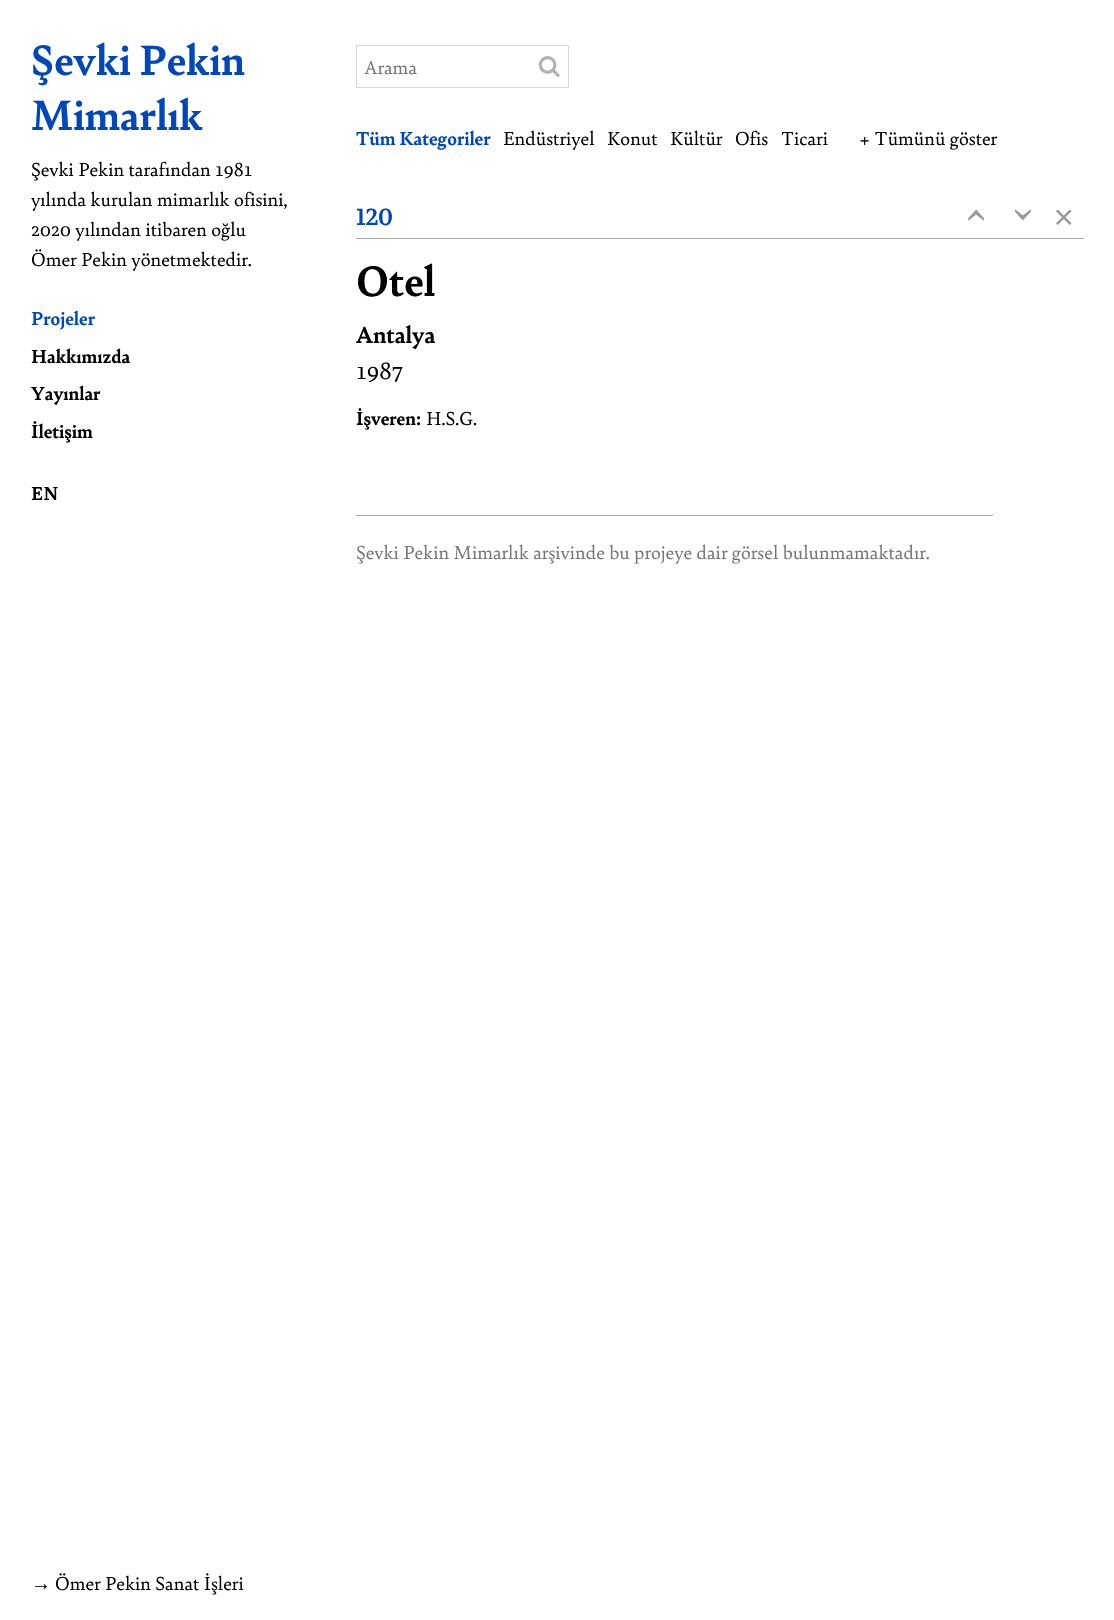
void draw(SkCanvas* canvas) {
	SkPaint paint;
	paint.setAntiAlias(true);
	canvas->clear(0xffffffff);
	SkFont f1(fontMgr->matchFamilyStyle("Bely", SkFontStyle::Bold()), 45);
	f1.setSubpixel(true);
	paint.setColor(0xff0048ba);
	canvas->drawString("Şevki Pekin", 31, 75, f1, paint);
	canvas->drawString("Mimarlık", 31, 130, f1, paint);
	SkFont f2(fontMgr->matchFamilyStyle("Bely", SkFontStyle::Normal()), 20);
	f2.setSubpixel(true);
	paint.setColor(0xff000000);
	canvas->drawString("Şevki Pekin tarafından 1981", 31, 176, f2, paint);
	canvas->drawString("yılında kurulan mimarlık ofisini,", 31, 206, f2, paint);
	canvas->drawString("2020 yılından itibaren oğlu", 31, 236, f2, paint);
	canvas->drawString("Ömer Pekin yönetmektedir.", 31, 266, f2, paint);
	SkFont f3(fontMgr->matchFamilyStyle("Bely", SkFontStyle::Bold()), 20);
	f3.setSubpixel(true);
	paint.setColor(0xff0048ba);
	canvas->drawString("Projeler", 31, 325, f3, paint);
	paint.setColor(0xff000000);
	canvas->drawString("Hakkımızda", 31, 363, f3, paint);
	canvas->drawString("Yayınlar", 31, 400, f3, paint);
	canvas->drawString("İletişim", 31, 438, f3, paint);
	canvas->drawString("EN", 31, 500, f3, paint);
	SkFont f4(fontMgr->matchFamilyStyle("Liberation Sans", SkFontStyle::Normal()), 20);
	f4.setSubpixel(true);
	canvas->drawString("→", 31, 1590, f4, paint);
	canvas->drawString("Ömer Pekin Sanat İşleri", 55, 1590, f2, paint);
	paint.setStroke(true);
	paint.setStrokeWidth(1);
	paint.setColor(0xffd8d8d8);
	canvas->drawRect(SkRect::MakeXYWH(356.5, 45.5, 212, 42), paint);
	paint.setStroke(false);
	paint.setColor(0xff757575);
	canvas->drawString("Arama", 364, 74, f2, paint);
	canvas->drawImageRect(SkImages::DeferredFromEncodedData(SkData::MakeFromFileName("img1.png")), SkRect::MakeXYWH(538, 56, 22, 21), SkSamplingOptions());
	paint.setColor(0xff0048ba);
	canvas->drawString("Tüm Kategoriler", 356, 145, f3, paint);
	paint.setColor(0xff000000);
	canvas->drawString("Endüstriyel", 503, 145, f2, paint);
	canvas->drawString("Konut", 607, 145, f2, paint);
	canvas->drawString("Kültür", 670, 145, f2, paint);
	canvas->drawString("Ofis", 735, 145, f2, paint);
	canvas->drawString("Ticari", 781, 145, f2, paint);
	canvas->drawString("+ Tümünü göster", 859, 145, f2, paint);
	paint.setColor(0xffaaaaaa);
	canvas->drawRect(SkRect::MakeXYWH(356, 238, 728, 1), paint);
	SkFont f5(fontMgr->matchFamilyStyle("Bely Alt", SkFontStyle::Bold()), 25);
	f5.setSubpixel(true);
	paint.setColor(0xff0048ba);
	canvas->drawString("120", 356, 225, f5, paint);
	SkFont f6(fontMgr->matchFamilyStyle("Bely", SkFontStyle::Normal()), 50);
	f6.setSubpixel(true);
	paint.setColor(0xff999999);
	canvas->save();
	canvas->rotate(90, 966, 208);
	canvas->drawString("‹", 966, 208, f6, paint);
	canvas->restore();
	canvas->save();
	canvas->rotate(-90, 1033, 222);
	canvas->drawString("‹", 1033, 222, f6, paint);
	canvas->restore();
	SkFont f7(fontMgr->matchFamilyStyle("Bely", SkFontStyle::Normal()), 42);
	f7.setSubpixel(true);
	canvas->drawString("×", 1052, 226, f7, paint);
	paint.setColor(0xff000000);
	canvas->drawString("Otel", 356, 296, f1, paint);
	SkFont f8(fontMgr->matchFamilyStyle("Bely", SkFontStyle::Bold()), 25);
	f8.setSubpixel(true);
	canvas->drawString("Antalya", 356, 343, f8, paint);
	SkFont f9(fontMgr->matchFamilyStyle("Bely", SkFontStyle::Normal()), 25);
	f9.setSubpixel(true);
	canvas->drawString("1987", 356, 379, f9, paint);
	canvas->drawString("İşveren:", 356, 425, f3, paint);
	canvas->drawString("H.S.G.", 426, 425, f2, paint);
	paint.setColor(0xffaaaaaa);
	canvas->drawRect(SkRect::MakeXYWH(356, 515, 637, 1), paint);
	paint.setColor(0xff757575);
	canvas->drawString("Şevki Pekin Mimarlık arşivinde bu projeye dair görsel bulunmamaktadır.", 356, 559, f2, paint);
}
